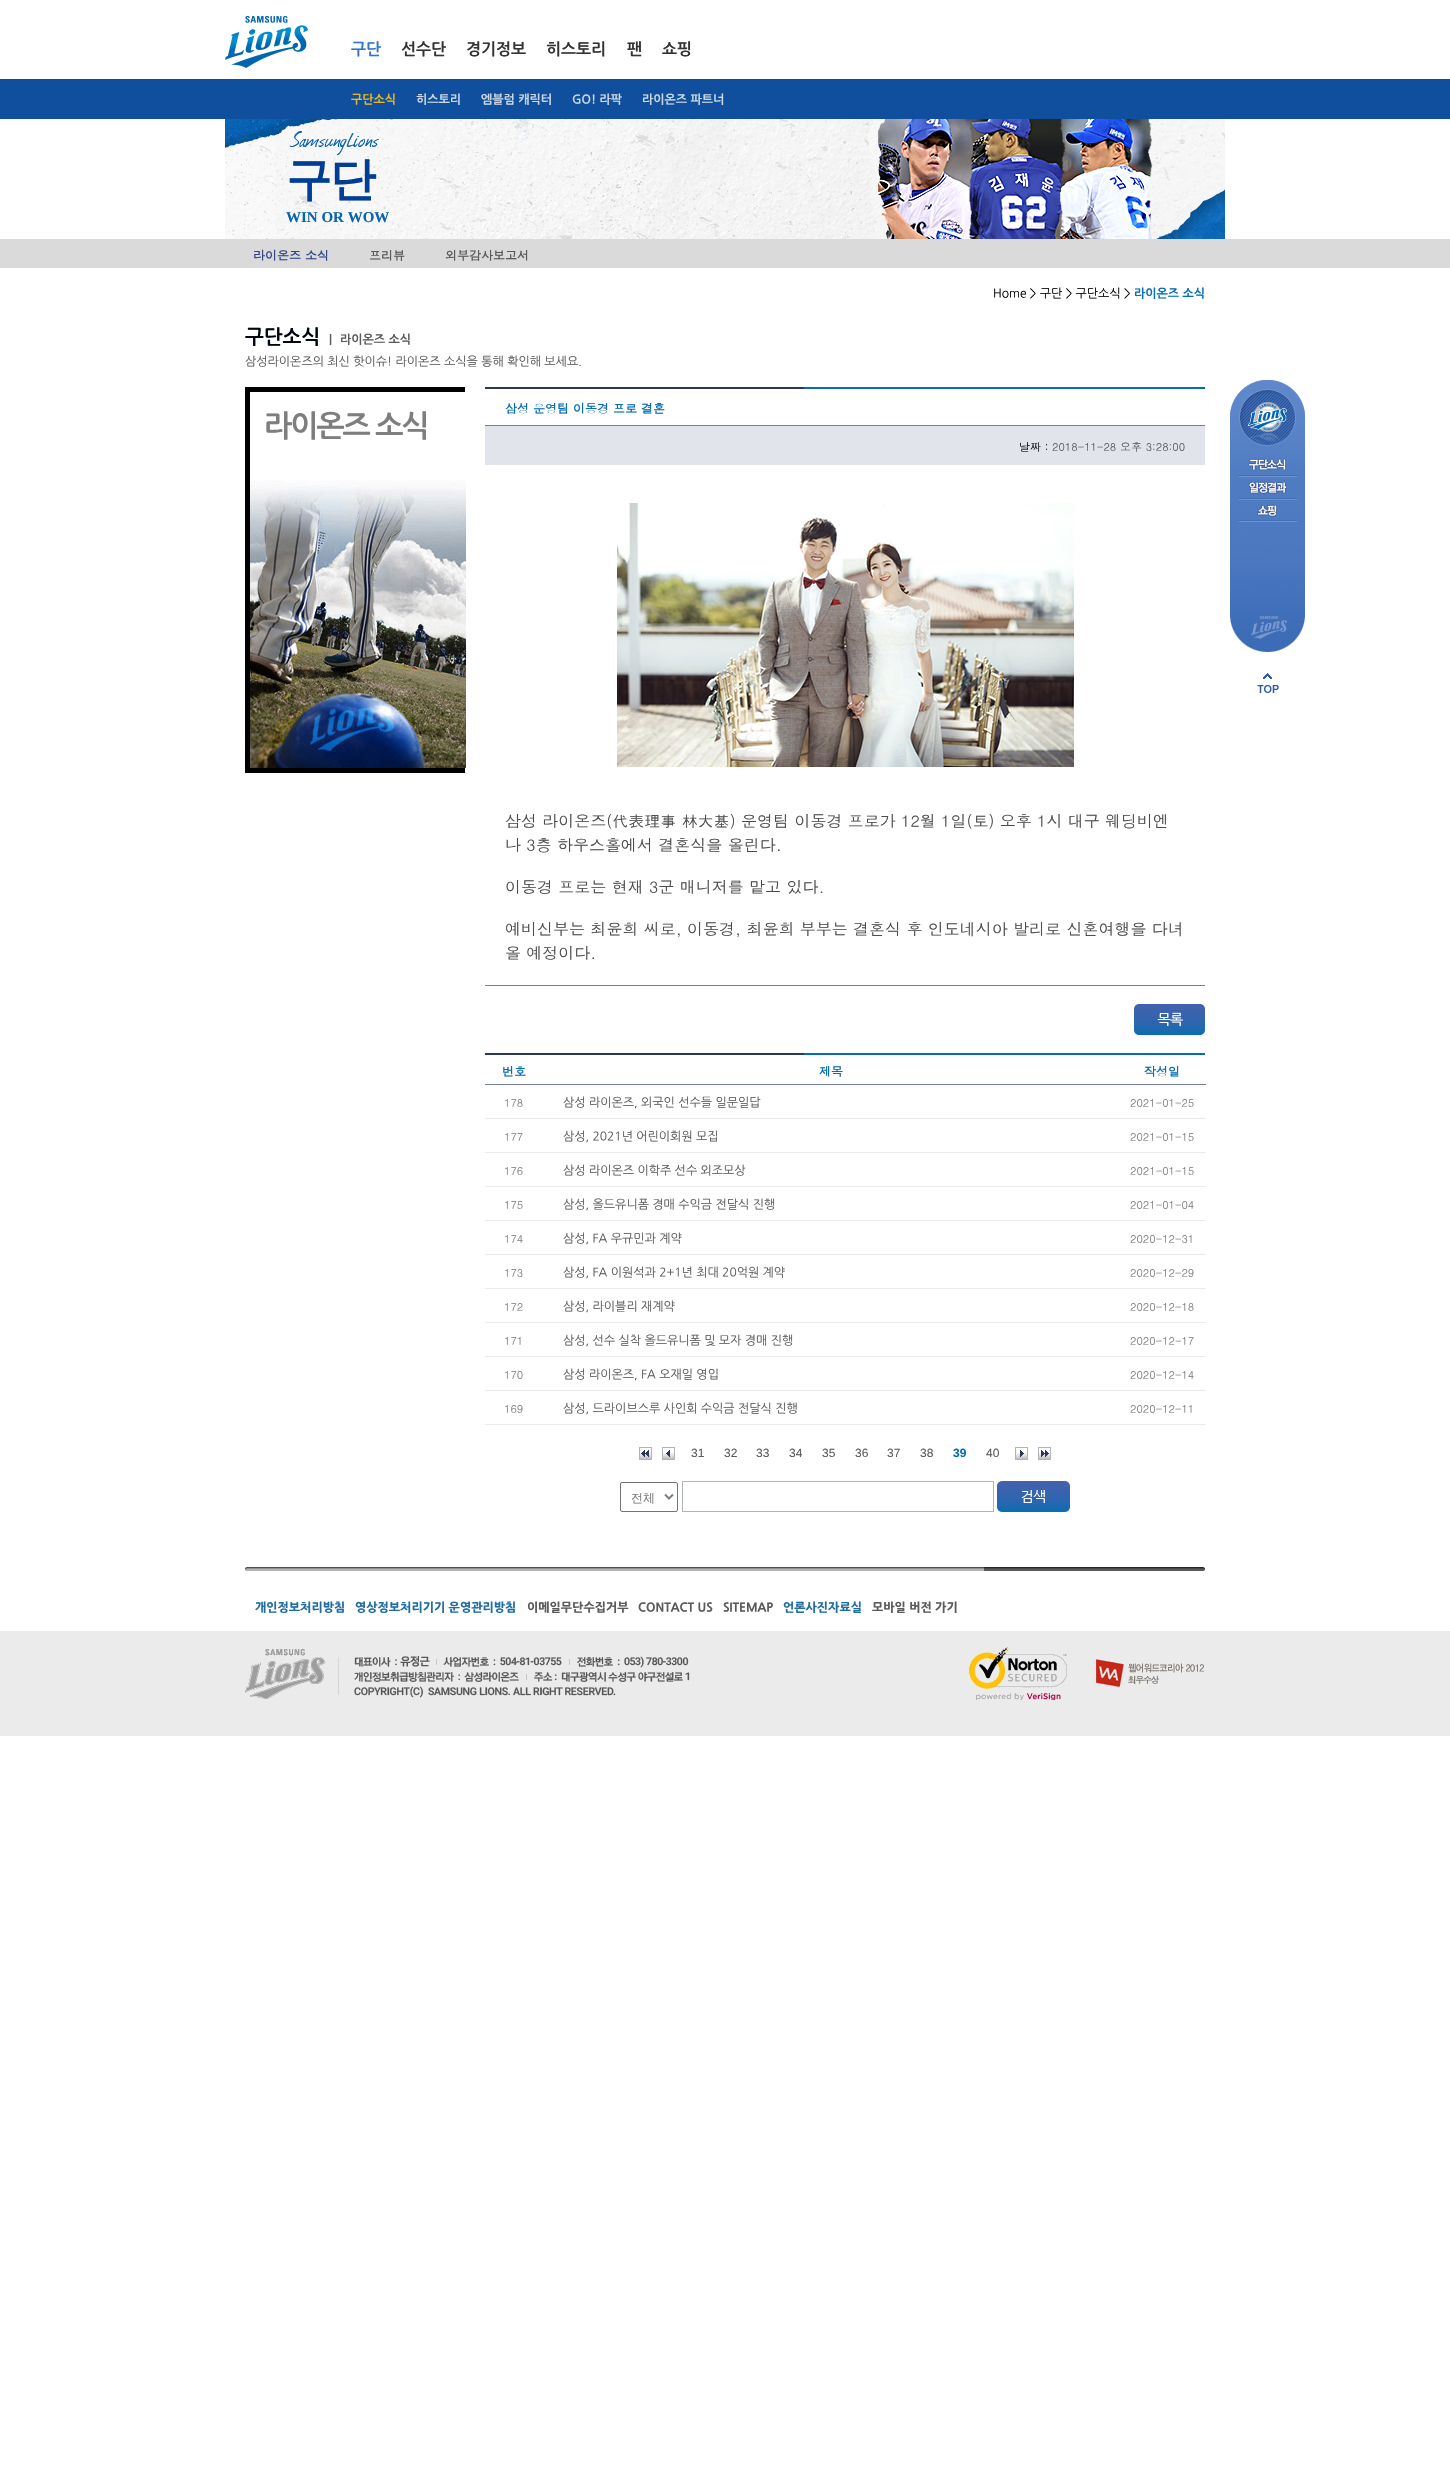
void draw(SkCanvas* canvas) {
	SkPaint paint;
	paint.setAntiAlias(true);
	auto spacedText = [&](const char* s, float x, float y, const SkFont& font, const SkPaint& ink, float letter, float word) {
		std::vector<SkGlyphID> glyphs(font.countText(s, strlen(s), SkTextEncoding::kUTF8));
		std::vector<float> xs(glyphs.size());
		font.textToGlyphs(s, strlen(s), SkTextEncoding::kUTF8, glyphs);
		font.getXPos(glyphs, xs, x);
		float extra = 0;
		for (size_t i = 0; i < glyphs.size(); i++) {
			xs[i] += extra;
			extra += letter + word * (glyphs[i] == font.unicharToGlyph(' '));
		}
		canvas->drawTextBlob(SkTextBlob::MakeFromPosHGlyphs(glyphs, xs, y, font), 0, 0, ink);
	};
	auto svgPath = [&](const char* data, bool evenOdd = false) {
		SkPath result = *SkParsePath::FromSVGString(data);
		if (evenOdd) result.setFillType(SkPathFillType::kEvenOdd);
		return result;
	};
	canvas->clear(0xffffffff);
	paint.setColor(0xff0f4f9e);
	canvas->drawRect(SkRect::MakeXYWH(0, 79, 1450, 40), paint);
	canvas->drawImageRect(SkImages::DeferredFromEncodedData(SkData::MakeFromFileName("img1.png")), SkRect::MakeXYWH(225, 16, 83, 52), SkSamplingOptions());
	SkFont f1(fontMgr->matchFamilyStyle("NanumGothic", SkFontStyle::Bold()), 16);
	f1.setSubpixel(true);
	paint.setColor(0xff3277c4);
	canvas->drawString("구단", 351, 54, f1, paint);
	SkFont f2(fontMgr->matchFamilyStyle("NanumGothic", SkFontStyle::Bold()), 12);
	f2.setSubpixel(true);
	paint.setColor(0xffeab821);
	canvas->drawString("구단소식", 351, 103, f2, paint);
	paint.setColor(0xffcdd8e4);
	canvas->drawString("히스토리", 416, 103, f2, paint);
	canvas->drawString("엠블럼 캐릭터", 481, 103, f2, paint);
	canvas->drawString("GO! 라팍", 572, 103, f2, paint);
	canvas->drawString("라이온즈 파트너", 642, 103, f2, paint);
	paint.setColor(0xff333333);
	canvas->drawString("선수단", 401, 54, f1, paint);
	canvas->drawString("경기정보", 466, 54, f1, paint);
	canvas->drawString("히스토리", 546, 54, f1, paint);
	canvas->drawString("팬", 627, 54, f1, paint);
	canvas->drawString("쇼핑", 662, 54, f1, paint);
	canvas->drawImageRect(SkImages::DeferredFromEncodedData(SkData::MakeFromFileName("img2.png")), SkRect::MakeXYWH(225, 119, 1000, 120), SkSamplingOptions());
	canvas->drawImageRect(SkImages::DeferredFromEncodedData(SkData::MakeFromFileName("img3.png")), SkRect::MakeXYWH(289, 131, 90, 24), SkSamplingOptions());
	SkFont f3(fontMgr->matchFamilyStyle("WenQuanYi Zen Hei", SkFontStyle::Bold()), 46);
	f3.setSubpixel(true);
	paint.setColor(0xff003e96);
	spacedText("구단", 286, 195, f3, paint, -2, 0);
	SkFont f4(fontMgr->matchFamilyStyle("Liberation Serif", SkFontStyle::Bold()), 15);
	f4.setSubpixel(true);
	paint.setColor(0xff0762b2);
	canvas->drawString("WIN OR WOW", 286, 222, f4, paint);
	paint.setColor(0xffdadada);
	canvas->drawRect(SkRect::MakeXYWH(0, 239, 1450, 29), paint);
	SkFont f5(fontMgr->matchFamilyStyle("Dotum", SkFontStyle::Bold()), 12);
	f5.setSubpixel(true);
	paint.setColor(0xff34478c);
	canvas->drawString("라이온즈 소식", 253, 260, f5, paint);
	paint.setColor(0xff5b5b5b);
	canvas->drawString("프리뷰", 369, 260, f5, paint);
	canvas->drawString("외부감사보고서", 445, 260, f5, paint);
	SkFont f6(fontMgr->matchFamilyStyle("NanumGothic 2", SkFontStyle::Normal()), 12);
	f6.setSubpixel(true);
	paint.setColor(0xff000000);
	canvas->drawString("Home > 구단 > 구단소식 >", 993, 297, f6, paint);
	paint.setColor(0xff086eb1);
	canvas->drawString("라이온즈 소식", 1134, 297, f2, paint);
	SkFont f7(fontMgr->matchFamilyStyle("NanumGothic", SkFontStyle::Bold()), 20);
	f7.setSubpixel(true);
	paint.setColor(0xff00050f);
	canvas->drawString("구단소식", 245, 343, f7, paint);
	paint.setColor(0xff5b5b5b);
	canvas->drawString("|", 329, 343, f2, paint);
	canvas->drawString("라이온즈 소식", 340, 343, f2, paint);
	canvas->drawString("삼성라이온즈의 최신 핫이슈! 라이온즈 소식을 통해 확인해 보세요.", 245, 365, f6, paint);
	canvas->drawImageRect(SkImages::DeferredFromEncodedData(SkData::MakeFromFileName("img4.png")), SkRect::MakeXYWH(250, 480, 222, 293), SkSamplingOptions());
	paint.setColor(0xff000000);
	canvas->drawRect(SkRect::MakeXYWH(245, 387, 220, 5), paint);
	canvas->drawRect(SkRect::MakeXYWH(245, 768, 220, 5), paint);
	canvas->drawRect(SkRect::MakeXYWH(245, 387, 5, 386), paint);
	SkFont f8(fontMgr->matchFamilyStyle("NanumGothic", SkFontStyle::Bold()), 30);
	f8.setSubpixel(true);
	paint.setColor(0xff7e7e7e);
	spacedText("라이온즈 소식", 264, 435, f8, paint, -2, 0);
	canvas->drawImageRect(SkImages::DeferredFromEncodedData(SkData::MakeFromFileName("img5.png")), SkRect::MakeXYWH(485, 387, 720, 2), SkSamplingOptions());
	paint.setColor(0xff767ea3);
	canvas->drawRect(SkRect::MakeXYWH(485, 985, 720, 1), paint);
	canvas->drawRect(SkRect::MakeXYWH(485, 425, 720, 1), paint);
	paint.setColor(0xff086eb1);
	canvas->drawString("삼성 운영팀 이동경 프로 결혼", 505, 413, f5, paint);
	paint.setColor(0xffe2e4ec);
	canvas->drawRect(SkRect::MakeXYWH(485, 426, 720, 39), paint);
	SkFont f9(fontMgr->matchFamilyStyle("Dotum", SkFontStyle::Normal()), 11);
	f9.setSubpixel(true);
	paint.setColor(0xff00050f);
	canvas->drawString("날짜 :", 1019, 451, f9, paint);
	paint.setColor(0xff5b5b5b);
	canvas->drawString("2018-11-28 오후 3:28:00", 1052, 451, f9, paint);
	canvas->drawImageRect(SkImages::DeferredFromEncodedData(SkData::MakeFromFileName("img6.png")), SkRect::MakeXYWH(617, 503, 457, 264), SkSamplingOptions());
	SkFont f10(fontMgr->matchFamilyStyle("Dotum", SkFontStyle::Normal()), 16);
	f10.setSubpixel(true);
	paint.setColor(0xff4c4c4c);
	canvas->drawString("삼성 라이온즈(代表理事 林大基) 운영팀 이동경 프로가 12월 1일(토) 오후 1시 대구 웨딩비엔", 505, 827, f10, paint);
	canvas->drawString("나 3층 하우스홀에서 결혼식을 올린다.", 505, 851, f10, paint);
	canvas->drawString("이동경 프로는 현재 3군 매니저를 맡고 있다.", 505, 893, f10, paint);
	canvas->drawString("예비신부는 최윤희 씨로, 이동경, 최윤희 부부는 결혼식 후 인도네시아 발리로 신혼여행을 다녀", 505, 935, f10, paint);
	canvas->drawString("올 예정이다.", 505, 959, f10, paint);
	canvas->drawImageRect(SkImages::DeferredFromEncodedData(SkData::MakeFromFileName("img7.png")), SkRect::MakeXYWH(1134, 1004, 71, 31), SkSamplingOptions());
	canvas->drawImageRect(SkImages::DeferredFromEncodedData(SkData::MakeFromFileName("img5.png")), SkRect::MakeXYWH(485, 1053, 720, 2), SkSamplingOptions());
	paint.setColor(0xff086eb1);
	canvas->drawString("번호", 502, 1076, f5, paint);
	canvas->drawString("제목", 819, 1076, f5, paint);
	paint.setColor(0xff767ea3);
	canvas->drawRect(SkRect::MakeXYWH(485, 1084, 721, 1), paint);
	paint.setColor(0xff086eb1);
	canvas->drawString("작성일", 1144, 1076, f5, paint);
	paint.setColor(0xff7e7e7e);
	canvas->drawString("178", 504, 1107, f9, paint);
	SkFont f11(fontMgr->matchFamilyStyle("NanumGothic", SkFontStyle::Normal()), 12);
	f11.setSubpixel(true);
	paint.setColor(0xff5b5b5b);
	canvas->drawString("삼성 라이온즈, 외국인 선수들 일문일답", 563, 1106, f11, paint);
	paint.setColor(0xffebebeb);
	canvas->drawRect(SkRect::MakeXYWH(485, 1118, 721, 1), paint);
	paint.setColor(0xff7e7e7e);
	canvas->drawString("2021-01-25", 1130, 1107, f9, paint);
	canvas->drawString("177", 504, 1141, f9, paint);
	paint.setColor(0xff5b5b5b);
	canvas->drawString("삼성, 2021년 어린이회원 모집", 563, 1140, f11, paint);
	paint.setColor(0xffebebeb);
	canvas->drawRect(SkRect::MakeXYWH(485, 1152, 721, 1), paint);
	paint.setColor(0xff7e7e7e);
	canvas->drawString("2021-01-15", 1130, 1141, f9, paint);
	canvas->drawString("176", 504, 1175, f9, paint);
	paint.setColor(0xff5b5b5b);
	canvas->drawString("삼성 라이온즈 이학주 선수 외조모상", 563, 1174, f11, paint);
	paint.setColor(0xffebebeb);
	canvas->drawRect(SkRect::MakeXYWH(485, 1186, 721, 1), paint);
	paint.setColor(0xff7e7e7e);
	canvas->drawString("2021-01-15", 1130, 1175, f9, paint);
	canvas->drawString("175", 504, 1209, f9, paint);
	paint.setColor(0xff5b5b5b);
	canvas->drawString("삼성, 올드유니폼 경매 수익금 전달식 진행", 563, 1208, f11, paint);
	paint.setColor(0xffebebeb);
	canvas->drawRect(SkRect::MakeXYWH(485, 1220, 721, 1), paint);
	paint.setColor(0xff7e7e7e);
	canvas->drawString("2021-01-04", 1130, 1209, f9, paint);
	canvas->drawString("174", 504, 1243, f9, paint);
	paint.setColor(0xff5b5b5b);
	canvas->drawString("삼성, FA 우규민과 계약", 563, 1242, f11, paint);
	paint.setColor(0xffebebeb);
	canvas->drawRect(SkRect::MakeXYWH(485, 1254, 721, 1), paint);
	paint.setColor(0xff7e7e7e);
	canvas->drawString("2020-12-31", 1130, 1243, f9, paint);
	canvas->drawString("173", 504, 1277, f9, paint);
	paint.setColor(0xff5b5b5b);
	canvas->drawString("삼성, FA 이원석과 2+1년 최대 20억원 계약", 563, 1276, f11, paint);
	paint.setColor(0xffebebeb);
	canvas->drawRect(SkRect::MakeXYWH(485, 1288, 721, 1), paint);
	paint.setColor(0xff7e7e7e);
	canvas->drawString("2020-12-29", 1130, 1277, f9, paint);
	canvas->drawString("172", 504, 1311, f9, paint);
	paint.setColor(0xff5b5b5b);
	canvas->drawString("삼성, 라이블리 재계약", 563, 1310, f11, paint);
	paint.setColor(0xffebebeb);
	canvas->drawRect(SkRect::MakeXYWH(485, 1322, 721, 1), paint);
	paint.setColor(0xff7e7e7e);
	canvas->drawString("2020-12-18", 1130, 1311, f9, paint);
	canvas->drawString("171", 504, 1345, f9, paint);
	paint.setColor(0xff5b5b5b);
	canvas->drawString("삼성, 선수 실착 올드유니폼 및 모자 경매 진행", 563, 1344, f11, paint);
	paint.setColor(0xffebebeb);
	canvas->drawRect(SkRect::MakeXYWH(485, 1356, 721, 1), paint);
	paint.setColor(0xff7e7e7e);
	canvas->drawString("2020-12-17", 1130, 1345, f9, paint);
	canvas->drawString("170", 504, 1379, f9, paint);
	paint.setColor(0xff5b5b5b);
	canvas->drawString("삼성 라이온즈, FA 오재일 영입", 563, 1378, f11, paint);
	paint.setColor(0xffebebeb);
	canvas->drawRect(SkRect::MakeXYWH(485, 1390, 721, 1), paint);
	paint.setColor(0xff7e7e7e);
	canvas->drawString("2020-12-14", 1130, 1379, f9, paint);
	canvas->drawString("169", 504, 1413, f9, paint);
	paint.setColor(0xff5b5b5b);
	canvas->drawString("삼성, 드라이브스루 사인회 수익금 전달식 진행", 563, 1412, f11, paint);
	paint.setColor(0xffebebeb);
	canvas->drawRect(SkRect::MakeXYWH(485, 1424, 721, 1), paint);
	paint.setColor(0xff7e7e7e);
	canvas->drawString("2020-12-11", 1130, 1413, f9, paint);
	canvas->drawImageRect(SkImages::DeferredFromEncodedData(SkData::MakeFromFileName("img8.png")), SkRect::MakeXYWH(639, 1447, 13, 13), SkSamplingOptions());
	canvas->drawImageRect(SkImages::DeferredFromEncodedData(SkData::MakeFromFileName("img9.png")), SkRect::MakeXYWH(662, 1447, 13, 13), SkSamplingOptions());
	SkFont f12(fontMgr->matchFamilyStyle("Liberation Sans", SkFontStyle::Normal()), 12);
	f12.setSubpixel(true);
	paint.setColor(0xff5b5b5b);
	canvas->drawString("31", 691, 1457, f12, paint);
	canvas->drawString("32", 724, 1457, f12, paint);
	canvas->drawString("33", 756, 1457, f12, paint);
	canvas->drawString("34", 789, 1457, f12, paint);
	canvas->drawString("35", 822, 1457, f12, paint);
	canvas->drawString("36", 855, 1457, f12, paint);
	canvas->drawString("37", 887, 1457, f12, paint);
	canvas->drawString("38", 920, 1457, f12, paint);
	SkFont f13(fontMgr->matchFamilyStyle("Liberation Sans", SkFontStyle::Bold()), 12);
	f13.setSubpixel(true);
	paint.setColor(0xff086eb1);
	canvas->drawString("39", 953, 1457, f13, paint);
	paint.setColor(0xff5b5b5b);
	canvas->drawString("40", 986, 1457, f12, paint);
	canvas->drawImageRect(SkImages::DeferredFromEncodedData(SkData::MakeFromFileName("img10.png")), SkRect::MakeXYWH(1015, 1447, 13, 13), SkSamplingOptions());
	canvas->drawImageRect(SkImages::DeferredFromEncodedData(SkData::MakeFromFileName("img11.png")), SkRect::MakeXYWH(1038, 1447, 13, 13), SkSamplingOptions());
	paint.setStroke(true);
	paint.setStrokeWidth(1);
	paint.setColor(0xff767676);
	canvas->drawRoundRect(SkRect::MakeXYWH(620.5, 1482.5, 57, 29), 1.5, 1.5, paint);
	paint.setStrokeWidth(2);
	paint.setColor(0xff7e7e7e);
	canvas->drawPath(svgPath("M665 1494.5L669 1498.5L673 1494.5"), paint);
	SkFont f14(fontMgr->matchFamilyStyle("WenQuanYi Zen Hei", SkFontStyle(500, SkFontStyle::kNormal_Width, SkFontStyle::kUpright_Slant)), 12);
	f14.setSubpixel(true);
	paint.setStroke(false);
	canvas->drawString("전체", 631, 1502, f14, paint);
	paint.setStroke(true);
	paint.setStrokeWidth(1);
	paint.setColor(0xffafb5bc);
	canvas->drawRect(SkRect::MakeXYWH(682.5, 1481.5, 311, 30), paint);
	canvas->drawImageRect(SkImages::DeferredFromEncodedData(SkData::MakeFromFileName("img12.png")), SkRect::MakeXYWH(997, 1481, 73, 31), SkSamplingOptions());
	canvas->drawImageRect(SkImages::DeferredFromEncodedData(SkData::MakeFromFileName("img13.png")), SkRect::MakeXYWH(1230, 380, 75, 272), SkSamplingOptions());
	canvas->drawImageRect(SkImages::DeferredFromEncodedData(SkData::MakeFromFileName("img15.png")), SkRect::MakeXYWH(1248, 402, 39, 41), SkSamplingOptions());
	canvas->drawImageRect(SkImages::DeferredFromEncodedData(SkData::MakeFromFileName("img14.png")), SkRect::MakeXYWH(1230, 380, 75, 62), SkSamplingOptions());
	canvas->drawImageRect(SkImages::DeferredFromEncodedData(SkData::MakeFromFileName("img16.png")), SkRect::MakeXYWH(1239, 458, 58, 19), SkSamplingOptions());
	canvas->drawImageRect(SkImages::DeferredFromEncodedData(SkData::MakeFromFileName("img17.png")), SkRect::MakeXYWH(1239, 481, 58, 19), SkSamplingOptions());
	canvas->drawImageRect(SkImages::DeferredFromEncodedData(SkData::MakeFromFileName("img18.png")), SkRect::MakeXYWH(1239, 504, 58, 18), SkSamplingOptions());
	canvas->drawImageRect(SkImages::DeferredFromEncodedData(SkData::MakeFromFileName("img19.png")), SkRect::MakeXYWH(1257, 673, 22, 20), SkSamplingOptions());
	canvas->drawImageRect(SkImages::DeferredFromEncodedData(SkData::MakeFromFileName("img20.png")), SkRect::MakeXYWH(245, 1567, 960, 4), SkSamplingOptions());
	SkFont f15(fontMgr->matchFamilyStyle("NanumGothic", SkFontStyle(800, SkFontStyle::kNormal_Width, SkFontStyle::kUpright_Slant)), 12);
	f15.setSubpixel(true);
	paint.setStroke(false);
	paint.setColor(0xff206da4);
	canvas->drawString("개인정보처리방침", 255, 1611, f15, paint);
	canvas->drawString("영상정보처리기기 운영관리방침", 355, 1611, f15, paint);
	paint.setColor(0xff5b5b5b);
	canvas->drawString("이메일무단수집거부", 527, 1611, f15, paint);
	canvas->drawString("CONTACT US", 638, 1611, f15, paint);
	canvas->drawString("SITEMAP", 723, 1611, f15, paint);
	paint.setColor(0xff206da4);
	canvas->drawString("언론사진자료실", 783, 1611, f15, paint);
	paint.setColor(0xff5b5b5b);
	canvas->drawString("모바일 버전 가기", 872, 1611, f15, paint);
	paint.setColor(0xffebebeb);
	canvas->drawRect(SkRect::MakeXYWH(0, 1631, 1450, 105), paint);
	canvas->drawImageRect(SkImages::DeferredFromEncodedData(SkData::MakeFromFileName("img21.png")), SkRect::MakeXYWH(245, 1649, 445, 50), SkSamplingOptions());
	canvas->drawImageRect(SkImages::DeferredFromEncodedData(SkData::MakeFromFileName("img22.png")), SkRect::MakeXYWH(969, 1647, 98, 53), SkSamplingOptions());
	canvas->drawImageRect(SkImages::DeferredFromEncodedData(SkData::MakeFromFileName("img23.png")), SkRect::MakeXYWH(1096, 1659, 108, 28), SkSamplingOptions());
}
